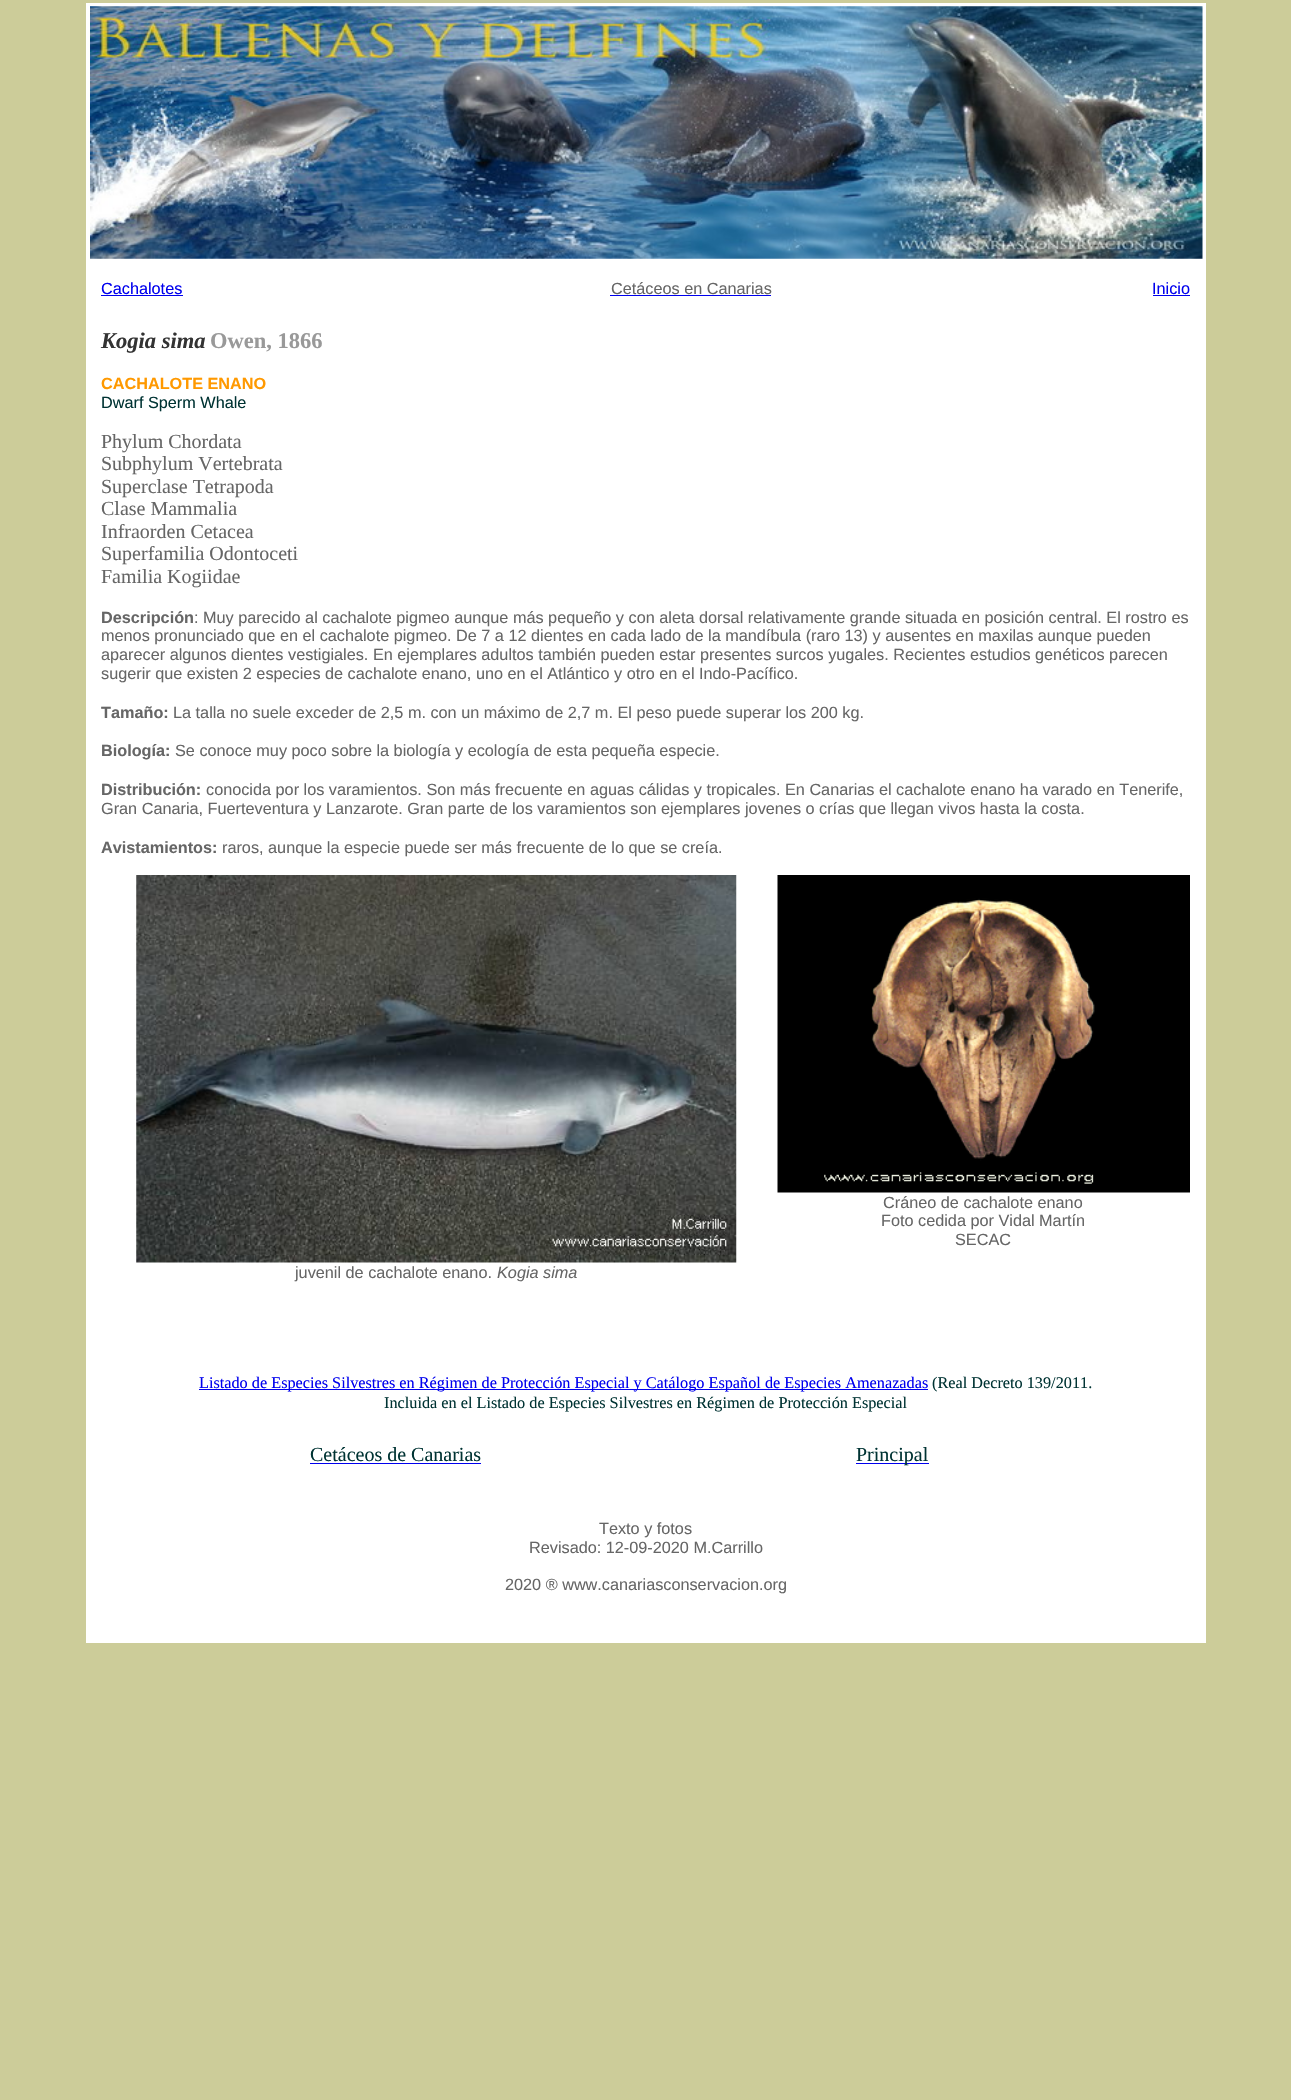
void draw(SkCanvas* canvas) {
	SkPaint paint;
	paint.setAntiAlias(true);
	canvas->clear(0xffcccc99);
	paint.setColor(0xffffffff);
	canvas->drawRect(SkRect::MakeXYWH(86, 3, 1120, 1640), paint);
	canvas->drawImageRect(SkImages::DeferredFromEncodedData(SkData::MakeFromFileName("img1.png")), SkRect::MakeXYWH(90, 6, 1113, 253), SkSamplingOptions());
	SkFont f1(fontMgr->matchFamilyStyle("Liberation Sans", SkFontStyle::Normal()), 16.25);
	f1.setSubpixel(true);
	paint.setColor(0xff0000ee);
	canvas->drawString("Cachalotes", 101, 294, f1, paint);
	canvas->drawRect(SkRect::MakeXYWH(101, 295, 82, 1), paint);
	paint.setColor(0xff666666);
	canvas->drawString("Cetáceos en Canarias", 611, 294, f1, paint);
	paint.setColor(0xff0000ee);
	canvas->drawRect(SkRect::MakeXYWH(610, 295, 161, 1), paint);
	canvas->drawString("Inicio", 1152, 294, f1, paint);
	canvas->drawRect(SkRect::MakeXYWH(1153, 295, 37, 1), paint);
	SkFont f2(fontMgr->matchFamilyStyle("Liberation Serif", SkFontStyle::BoldItalic()), 22.5);
	f2.setSubpixel(true);
	paint.setColor(0xff333333);
	canvas->drawString("Kogia sima", 101, 348, f2, paint);
	SkFont f3(fontMgr->matchFamilyStyle("Liberation Serif", SkFontStyle::Bold()), 22.5);
	f3.setSubpixel(true);
	paint.setColor(0xff999999);
	canvas->drawString("Owen, 1866", 210, 348, f3, paint);
	SkFont f4(fontMgr->matchFamilyStyle("Liberation Sans", SkFontStyle::Bold()), 16.25);
	f4.setSubpixel(true);
	paint.setColor(0xffff9900);
	canvas->drawString("CACHALOTE ENANO", 101, 389, f4, paint);
	paint.setColor(0xff003333);
	canvas->drawString("Dwarf Sperm Whale", 101, 408, f1, paint);
	SkFont f5(fontMgr->matchFamilyStyle("Liberation Serif", SkFontStyle::Normal()), 20);
	f5.setSubpixel(true);
	paint.setColor(0xff666666);
	canvas->drawString("Phylum Chordata", 101, 448, f5, paint);
	canvas->drawString("Subphylum Vertebrata", 101, 470, f5, paint);
	canvas->drawString("Superclase Tetrapoda", 101, 493, f5, paint);
	canvas->drawString("Clase Mammalia", 101, 515, f5, paint);
	canvas->drawString("Infraorden Cetacea", 101, 538, f5, paint);
	canvas->drawString("Superfamilia Odontoceti", 101, 560, f5, paint);
	canvas->drawString("Familia Kogiidae", 101, 583, f5, paint);
	canvas->drawString("Descripción", 101, 623, f4, paint);
	canvas->drawString(": Muy parecido al cachalote pigmeo aunque más pequeño y con aleta dorsal relativamente grande situada en posición central. El rostro es", 194, 623, f1, paint);
	canvas->drawString("menos pronunciado que en el cachalote pigmeo. De 7 a 12 dientes en cada lado de la mandíbula (raro 13) y ausentes en maxilas aunque pueden", 101, 641, f1, paint);
	canvas->drawString("aparecer algunos dientes vestigiales. En ejemplares adultos también pueden estar presentes surcos yugales. Recientes estudios genéticos parecen", 101, 660, f1, paint);
	canvas->drawString("sugerir que existen 2 especies de cachalote enano, uno en el Atlántico y otro en el Indo-Pacífico.", 101, 679, f1, paint);
	canvas->drawString("Tamaño:", 101, 718, f4, paint);
	canvas->drawString("La talla no suele exceder de 2,5 m. con un máximo de 2,7 m. El peso puede superar los 200 kg.", 173, 718, f1, paint);
	canvas->drawString("Biología:", 101, 756, f4, paint);
	canvas->drawString("Se conoce muy poco sobre la biología y ecología de esta pequeña especie.", 175, 756, f1, paint);
	canvas->drawString("Distribución:", 101, 795, f4, paint);
	canvas->drawString("conocida por los varamientos. Son más frecuente en aguas cálidas y tropicales. En Canarias el cachalote enano ha varado en Tenerife,", 206, 795, f1, paint);
	canvas->drawString("Gran Canaria, Fuerteventura y Lanzarote. Gran parte de los varamientos son ejemplares jovenes o crías que llegan vivos hasta la costa.", 101, 814, f1, paint);
	canvas->drawString("Avistamientos:", 101, 853, f4, paint);
	canvas->drawString("raros, aunque la especie puede ser más frecuente de lo que se creía.", 222, 853, f1, paint);
	canvas->drawImageRect(SkImages::DeferredFromEncodedData(SkData::MakeFromFileName("img2.png")), SkRect::MakeXYWH(777, 875, 413, 318), SkSamplingOptions());
	canvas->drawString("Cráneo de cachalote enano", 883, 1208, f1, paint);
	canvas->drawString("Foto cedida por Vidal Martín", 881, 1226, f1, paint);
	canvas->drawString("SECAC", 955, 1245, f1, paint);
	canvas->drawImageRect(SkImages::DeferredFromEncodedData(SkData::MakeFromFileName("img3.png")), SkRect::MakeXYWH(136, 875, 601, 388), SkSamplingOptions());
	canvas->drawString("juvenil de cachalote enano.", 295, 1278, f1, paint);
	SkFont f6(fontMgr->matchFamilyStyle("Liberation Sans", SkFontStyle::Italic()), 16.25);
	f6.setSubpixel(true);
	canvas->drawString("Kogia sima", 497, 1278, f6, paint);
	paint.setColor(0xff0000ee);
	canvas->drawRect(SkRect::MakeXYWH(199, 1389, 729, 1), paint);
	SkFont f7(fontMgr->matchFamilyStyle("Liberation Serif", SkFontStyle::Normal()), 16.25);
	f7.setSubpixel(true);
	canvas->drawString("Listado de Especies Silvestres en Régimen de Protección Especial y Catálogo Español de Especies Amenazadas", 199, 1388, f7, paint);
	paint.setColor(0xff003333);
	canvas->drawString("(Real Decreto 139/2011.", 932, 1388, f7, paint);
	canvas->drawString("Incluida en el Listado de Especies Silvestres en Régimen de Protección Especial", 384, 1408, f7, paint);
	canvas->drawString("Cetáceos de Canarias", 310, 1461, f5, paint);
	paint.setColor(0xff0000ee);
	canvas->drawRect(SkRect::MakeXYWH(310, 1463, 171, 1), paint);
	canvas->drawRect(SkRect::MakeXYWH(856, 1463, 73, 1), paint);
	paint.setColor(0xff003333);
	canvas->drawString("Principal", 856, 1461, f5, paint);
	paint.setColor(0xff666666);
	canvas->drawString("Texto y fotos", 599, 1534, f1, paint);
	canvas->drawString("Revisado: 12-09-2020 M.Carrillo", 529, 1553, f1, paint);
	canvas->drawString("2020 ® www.canariasconservacion.org", 505, 1590, f1, paint);
}
